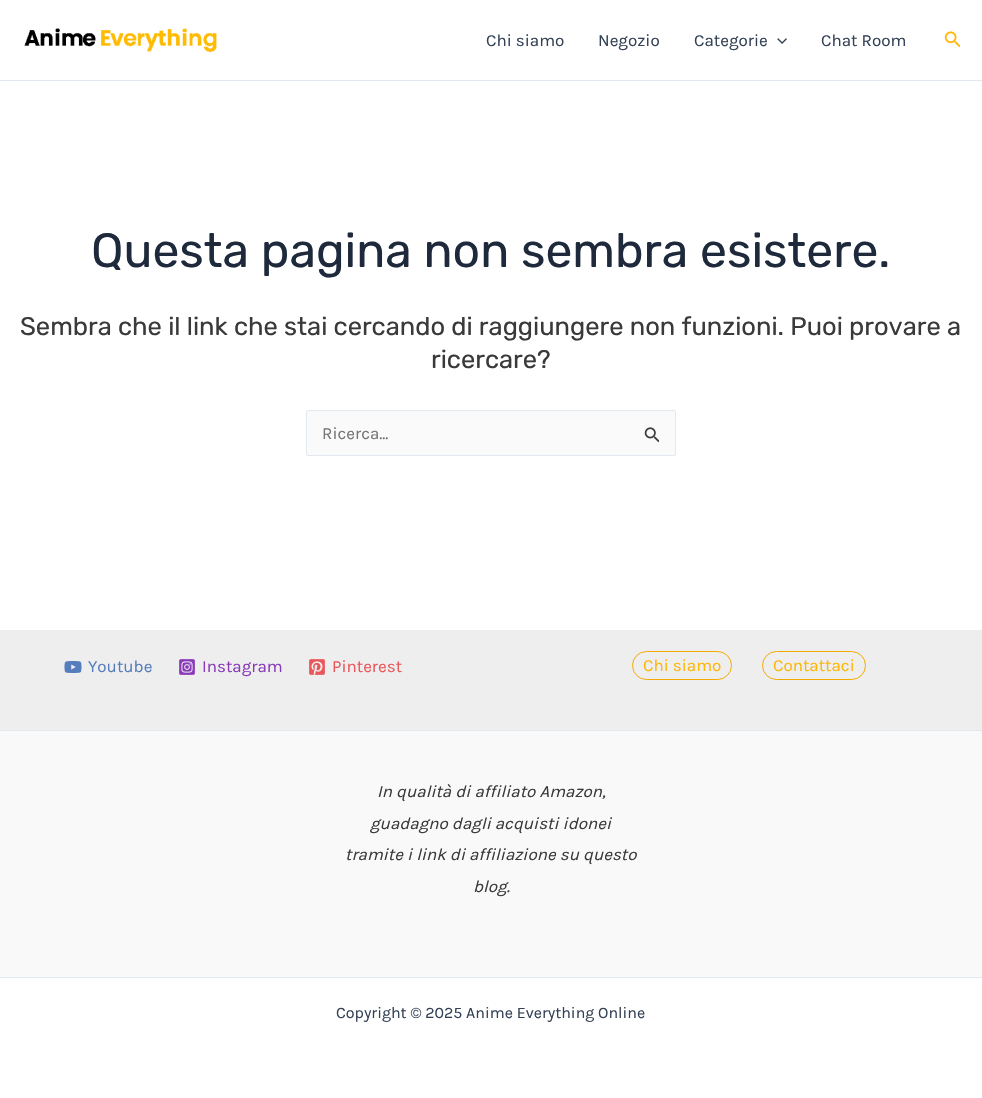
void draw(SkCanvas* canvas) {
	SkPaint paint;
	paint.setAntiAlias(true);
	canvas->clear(0xffffffff);
	paint.setColor(0xffe2e8f0);
	canvas->drawRect(SkRect::MakeXYWH(0, 80, 982, 1), paint);
	canvas->drawImageRect(SkImages::DeferredFromEncodedData(SkData::MakeFromFileName("img1.png")), SkRect::MakeXYWH(24, 28, 193, 24), SkSamplingOptions());
	SkFont f1(fontMgr->matchFamilyStyle("Karla", SkFontStyle::Normal()), 17);
	f1.setSubpixel(true);
	paint.setColor(0xff334155);
	canvas->drawString("Chi siamo", 486, 46, f1, paint);
	canvas->drawString("Negozio", 598, 46, f1, paint);
	canvas->drawString("Categorie", 694, 46, f1, paint);
	canvas->drawImageRect(SkImages::DeferredFromEncodedData(SkData::MakeFromFileName("img2.png")), SkRect::MakeXYWH(777, 38, 10, 6), SkSamplingOptions());
	canvas->drawString("Chat Room", 821, 46, f1, paint);
	canvas->drawImageRect(SkImages::DeferredFromEncodedData(SkData::MakeFromFileName("img3.png")), SkRect::MakeXYWH(944, 31, 16, 17), SkSamplingOptions());
	SkFont f2(fontMgr->matchFamilyStyle("Rubik", SkFontStyle::Normal()), 48);
	f2.setSubpixel(true);
	paint.setColor(0xff1e293b);
	canvas->drawString("Questa pagina non sembra esistere.", 91, 267, f2, paint);
	SkFont f3(fontMgr->matchFamilyStyle("Rubik", SkFontStyle::Normal()), 25.5);
	f3.setSubpixel(true);
	paint.setColor(0xff3a3a3a);
	canvas->drawString("Sembra che il link che stai cercando di raggiungere non funzioni. Puoi provare a", 20, 335, f3, paint);
	canvas->drawString("ricercare?", 431, 368, f3, paint);
	paint.setColor(0xfffafafa);
	canvas->drawRoundRect(SkRect::MakeXYWH(306.5, 410.5, 369, 45), 1.5, 1.5, paint);
	paint.setStroke(true);
	paint.setStrokeWidth(1);
	paint.setColor(0xffe2e8f0);
	canvas->drawRoundRect(SkRect::MakeXYWH(306.5, 410.5, 369, 45), 1.5, 1.5, paint);
	paint.setStroke(false);
	paint.setColor(0xff757575);
	canvas->drawString("Ricerca...", 322, 439, f1, paint);
	canvas->drawImageRect(SkImages::DeferredFromEncodedData(SkData::MakeFromFileName("img4.png")), SkRect::MakeXYWH(644, 427, 15, 16), SkSamplingOptions());
	paint.setColor(0xffeeeeee);
	canvas->drawRect(SkRect::MakeXYWH(0, 630, 982, 100), paint);
	canvas->drawImageRect(SkImages::DeferredFromEncodedData(SkData::MakeFromFileName("img5.png")), SkRect::MakeXYWH(64, 661, 18, 12), SkSamplingOptions());
	paint.setColor(0xff557dbc);
	canvas->drawString("Youtube", 88, 672, f1, paint);
	canvas->drawImageRect(SkImages::DeferredFromEncodedData(SkData::MakeFromFileName("img6.png")), SkRect::MakeXYWH(179, 659, 16, 16), SkSamplingOptions());
	paint.setColor(0xff8a3ab9);
	canvas->drawString("Instagram", 202, 672, f1, paint);
	canvas->drawImageRect(SkImages::DeferredFromEncodedData(SkData::MakeFromFileName("img7.png")), SkRect::MakeXYWH(309, 659, 16, 16), SkSamplingOptions());
	paint.setColor(0xffea575a);
	canvas->drawString("Pinterest", 332, 672, f1, paint);
	paint.setStroke(true);
	paint.setColor(0xfff3aa00);
	canvas->drawRoundRect(SkRect::MakeXYWH(632.5, 651.5, 99, 28), 14, 14, paint);
	paint.setStroke(false);
	paint.setColor(0xffffb606);
	canvas->drawString("Chi siamo", 643, 671, f1, paint);
	paint.setStroke(true);
	paint.setColor(0xfff3aa00);
	canvas->drawRoundRect(SkRect::MakeXYWH(762.5, 651.5, 103, 28), 14, 14, paint);
	paint.setStroke(false);
	paint.setColor(0xffffb606);
	canvas->drawString("Contattaci", 773, 671, f1, paint);
	paint.setColor(0xfff9f9f9);
	canvas->drawRect(SkRect::MakeXYWH(0, 731, 982, 246), paint);
	paint.setColor(0xffe2e8f0);
	canvas->drawRect(SkRect::MakeXYWH(0, 730, 982, 1), paint);
	SkFont f4(fontMgr->matchFamilyStyle("Karla", SkFontStyle::Italic()), 17);
	f4.setSubpixel(true);
	paint.setColor(0xff3a3a3a);
	canvas->drawString("In qualità di affiliato Amazon,", 377, 797, f4, paint);
	canvas->drawString("guadagno dagli acquisti idonei", 370, 829, f4, paint);
	canvas->drawString("tramite i link di affiliazione su questo", 345, 860, f4, paint);
	canvas->drawString("blog.", 473, 892, f4, paint);
	paint.setColor(0xffe2e8f0);
	canvas->drawRect(SkRect::MakeXYWH(0, 977, 982, 1), paint);
	SkFont f5(fontMgr->matchFamilyStyle("Karla", SkFontStyle::Normal()), 16);
	f5.setSubpixel(true);
	paint.setColor(0xff334155);
	canvas->drawString("Copyright © 2025 Anime Everything Online", 336, 1018, f5, paint);
}
